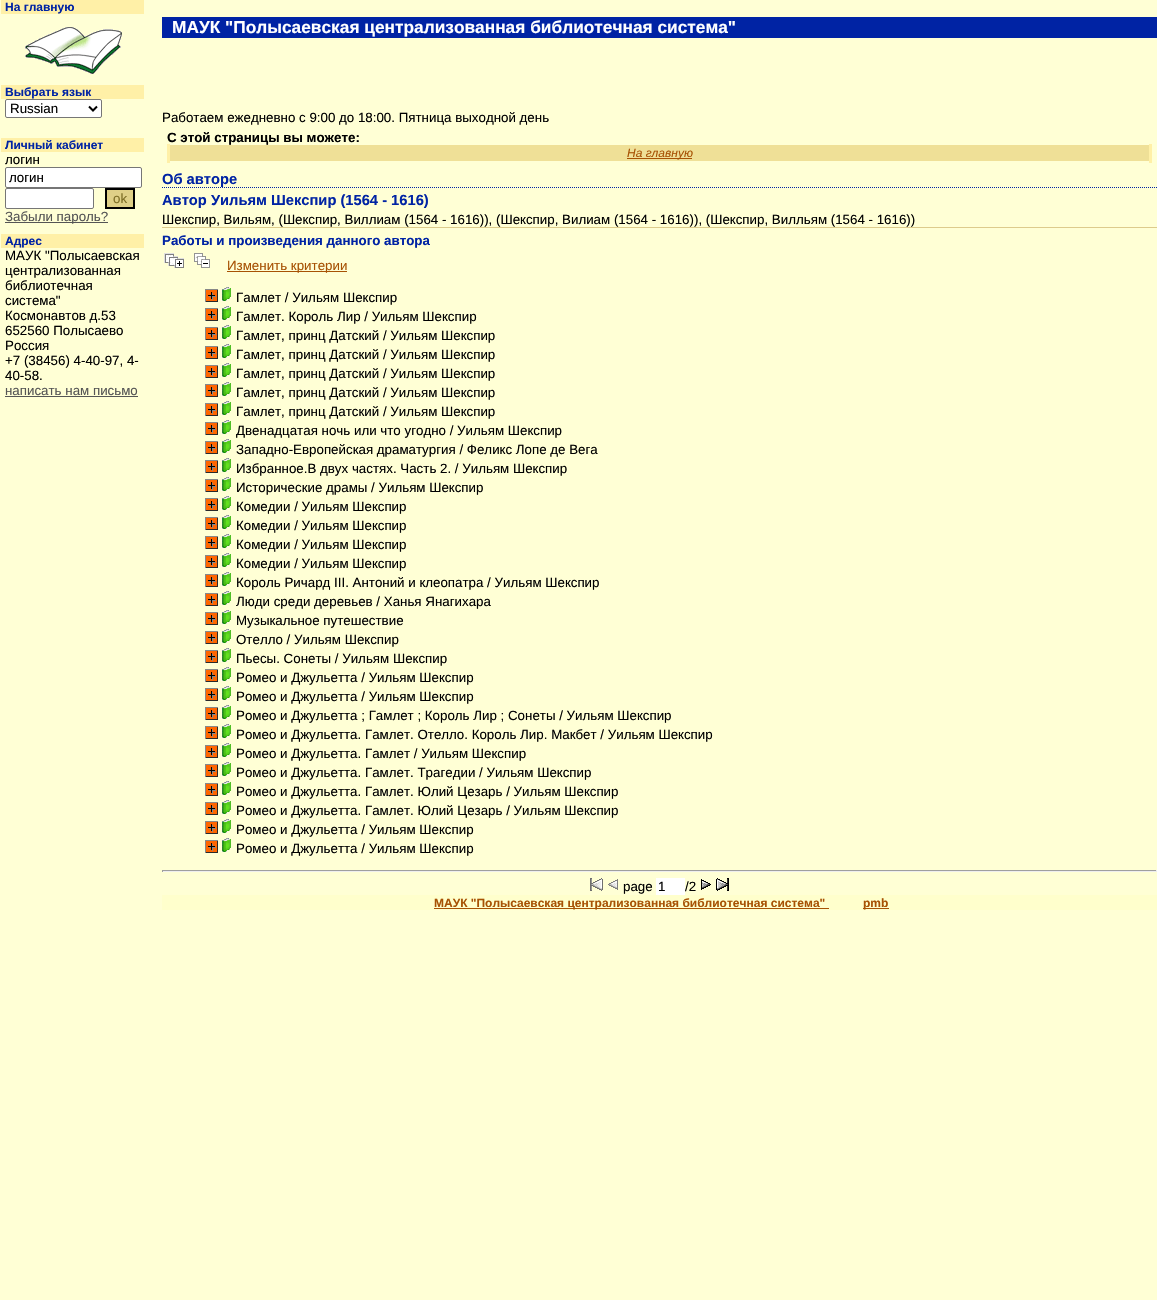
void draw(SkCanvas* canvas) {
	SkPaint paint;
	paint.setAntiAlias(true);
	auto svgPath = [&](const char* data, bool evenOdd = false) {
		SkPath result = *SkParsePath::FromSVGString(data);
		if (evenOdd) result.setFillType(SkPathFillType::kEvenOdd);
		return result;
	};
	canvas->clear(0xffffffd5);
	paint.setColor(0xfffff0a7);
	canvas->drawRect(SkRect::MakeXYWH(1, 0, 143, 14), paint);
	SkFont f1(fontMgr->matchFamilyStyle("Liberation Sans", SkFontStyle::Bold()), 12);
	f1.setSubpixel(true);
	paint.setColor(0xff0023a4);
	canvas->drawString("На главную", 5, 11, f1, paint);
	canvas->drawImageRect(SkImages::DeferredFromEncodedData(SkData::MakeFromFileName("img1.png")), SkRect::MakeXYWH(25, 27, 97, 47), SkSamplingOptions());
	paint.setColor(0xfffff0a7);
	canvas->drawRect(SkRect::MakeXYWH(1, 85, 143, 14), paint);
	paint.setColor(0xff0023a4);
	canvas->drawString("Выбрать язык", 5, 96, f1, paint);
	paint.setColor(0xffffffff);
	canvas->drawRoundRect(SkRect::MakeXYWH(5.5, 99.5, 96, 18), 1.5, 1.5, paint);
	paint.setStroke(true);
	paint.setStrokeWidth(1);
	paint.setColor(0xff767676);
	canvas->drawRoundRect(SkRect::MakeXYWH(5.5, 99.5, 96, 18), 1.5, 1.5, paint);
	paint.setStrokeWidth(2);
	paint.setColor(0xff000000);
	canvas->drawPath(svgPath("M89 106.5L93 110.5L97 106.5"), paint);
	SkFont f2(fontMgr->matchFamilyStyle("Liberation Sans", SkFontStyle::Normal()), 13.33);
	f2.setSubpixel(true);
	paint.setStroke(false);
	canvas->drawString("Russian", 10, 113, f2, paint);
	paint.setColor(0xfffff0a7);
	canvas->drawRect(SkRect::MakeXYWH(1, 138, 143, 14), paint);
	paint.setColor(0xff0023a4);
	canvas->drawString("Личный кабинет", 5, 149, f1, paint);
	paint.setColor(0xff000000);
	canvas->drawString("логин", 5, 164, f2, paint);
	paint.setColor(0xffffffff);
	canvas->drawRoundRect(SkRect::MakeXYWH(5.5, 167.5, 136, 20), 1.5, 1.5, paint);
	paint.setStroke(true);
	paint.setStrokeWidth(1);
	paint.setColor(0xff767676);
	canvas->drawRoundRect(SkRect::MakeXYWH(5.5, 167.5, 136, 20), 1.5, 1.5, paint);
	paint.setStroke(false);
	paint.setColor(0xff000000);
	canvas->drawString("логин", 9, 182, f2, paint);
	paint.setColor(0xffffffff);
	canvas->drawRoundRect(SkRect::MakeXYWH(5.5, 188.5, 88, 20), 1.5, 1.5, paint);
	paint.setStroke(true);
	paint.setColor(0xff767676);
	canvas->drawRoundRect(SkRect::MakeXYWH(5.5, 188.5, 88, 20), 1.5, 1.5, paint);
	paint.setStroke(false);
	paint.setColor(0xffdfd087);
	canvas->drawRect(SkRect::MakeXYWH(106, 189, 28, 19), paint);
	paint.setStroke(true);
	paint.setStrokeWidth(2);
	paint.setColor(0xff000000);
	canvas->drawRect(SkRect::MakeXYWH(106, 189, 28, 19), paint);
	paint.setStroke(false);
	paint.setColor(0xff7f7027);
	canvas->drawString("ok", 113, 203, f2, paint);
	paint.setColor(0xff555555);
	canvas->drawRect(SkRect::MakeXYWH(5, 222, 103, 1), paint);
	canvas->drawString("Забыли пароль?", 5, 221, f2, paint);
	paint.setColor(0xfffff0a7);
	canvas->drawRect(SkRect::MakeXYWH(1, 234, 143, 14), paint);
	paint.setColor(0xff0023a4);
	canvas->drawString("Адрес", 5, 245, f1, paint);
	paint.setColor(0xff000000);
	canvas->drawString("МАУК \"Полысаевская", 5, 260, f2, paint);
	canvas->drawString("централизованная", 5, 275, f2, paint);
	canvas->drawString("библиотечная", 5, 290, f2, paint);
	canvas->drawString("система\"", 5, 305, f2, paint);
	canvas->drawString("Космонавтов д.53", 5, 320, f2, paint);
	canvas->drawString("652560 Полысаево", 5, 335, f2, paint);
	canvas->drawString("Россия", 5, 350, f2, paint);
	canvas->drawString("+7 (38456) 4-40-97, 4-", 5, 365, f2, paint);
	canvas->drawString("40-58.", 5, 380, f2, paint);
	paint.setColor(0xff555555);
	canvas->drawString("написать нам письмо", 5, 395, f2, paint);
	canvas->drawRect(SkRect::MakeXYWH(5, 396, 133, 1), paint);
	paint.setColor(0xff0023a4);
	canvas->drawRect(SkRect::MakeXYWH(162, 17, 995, 21), paint);
	SkFont f3(fontMgr->matchFamilyStyle("Liberation Sans", SkFontStyle::Bold()), 17.3);
	f3.setSubpixel(true);
	paint.setColor(0xffffffff);
	canvas->drawString("МАУК \"Полысаевская централизованная библиотечная система\"", 172, 33, f3, paint);
	paint.setColor(0xff000000);
	canvas->drawString("Работаем ежедневно с 9:00 до 18:00. Пятница выходной день", 162, 122, f2, paint);
	paint.setColor(0xfffff0a7);
	canvas->drawRect(SkRect::MakeXYWH(167, 144, 3, 19), paint);
	SkFont f4(fontMgr->matchFamilyStyle("Liberation Sans", SkFontStyle::Bold()), 13.33);
	f4.setSubpixel(true);
	paint.setColor(0xff000000);
	canvas->drawString("С этой страницы вы можете:", 167, 142, f4, paint);
	paint.setColor(0xffefe097);
	canvas->drawRect(SkRect::MakeXYWH(170, 145, 979, 16), paint);
	paint.setColor(0xfffff0a7);
	canvas->drawRect(SkRect::MakeXYWH(1149, 144, 3, 19), paint);
	paint.setColor(0xffa75204);
	canvas->drawRect(SkRect::MakeXYWH(627, 158, 65, 1), paint);
	SkFont f5(fontMgr->matchFamilyStyle("Liberation Sans", SkFontStyle::Italic()), 12);
	f5.setSubpixel(true);
	canvas->drawString("На главную", 627, 157, f5, paint);
	paint.setStroke(true);
	paint.setStrokeWidth(1);
	paint.setColor(0xff0023a4);
	paint.setPathEffect(SkDashPathEffect::Make({{1, 1}}, 0));
	canvas->drawPath(svgPath("M162 187.5H1157"), paint);
	paint.setPathEffect(nullptr);
	SkFont f6(fontMgr->matchFamilyStyle("Liberation Sans", SkFontStyle::Bold()), 14.7);
	f6.setSubpixel(true);
	paint.setStroke(false);
	canvas->drawString("Об авторе", 162, 184, f6, paint);
	paint.setColor(0xffddcb8c);
	canvas->drawRect(SkRect::MakeXYWH(162, 227, 995, 1), paint);
	paint.setColor(0xff0023a4);
	canvas->drawString("Автор Уильям Шекспир (1564 - 1616)", 162, 205, f6, paint);
	paint.setColor(0xff000000);
	canvas->drawString("Шекспир, Вильям, (Шекспир, Виллиам (1564 - 1616)), (Шекспир, Вилиам (1564 - 1616)), (Шекспир, Вилльям (1564 - 1616))", 162, 224, f2, paint);
	paint.setColor(0xff0023a4);
	canvas->drawString("Работы и произведения данного автора", 162, 245, f4, paint);
	canvas->drawImageRect(SkImages::DeferredFromEncodedData(SkData::MakeFromFileName("img2.png")), SkRect::MakeXYWH(164, 253, 20, 15), SkSamplingOptions());
	canvas->drawImageRect(SkImages::DeferredFromEncodedData(SkData::MakeFromFileName("img3.png")), SkRect::MakeXYWH(194, 253, 16, 15), SkSamplingOptions());
	paint.setColor(0xffa75204);
	canvas->drawRect(SkRect::MakeXYWH(227, 271, 120, 1), paint);
	canvas->drawString("Изменить критерии", 227, 270, f2, paint);
	paint.setColor(0xffff6600);
	canvas->drawRect(SkRect::MakeXYWH(206, 290, 11, 11), paint);
	canvas->drawImageRect(SkImages::DeferredFromEncodedData(SkData::MakeFromFileName("img4.png")), SkRect::MakeXYWH(205, 289, 13, 13), SkSamplingOptions());
	canvas->drawImageRect(SkImages::DeferredFromEncodedData(SkData::MakeFromFileName("img5.png")), SkRect::MakeXYWH(221, 287, 10, 14), SkSamplingOptions());
	paint.setColor(0xff000000);
	canvas->drawString("Гамлет / Уильям Шекспир", 236, 302, f2, paint);
	paint.setColor(0xffff6600);
	canvas->drawRect(SkRect::MakeXYWH(206, 309, 11, 11), paint);
	canvas->drawImageRect(SkImages::DeferredFromEncodedData(SkData::MakeFromFileName("img4.png")), SkRect::MakeXYWH(205, 308, 13, 13), SkSamplingOptions());
	canvas->drawImageRect(SkImages::DeferredFromEncodedData(SkData::MakeFromFileName("img5.png")), SkRect::MakeXYWH(221, 306, 10, 14), SkSamplingOptions());
	paint.setColor(0xff000000);
	canvas->drawString("Гамлет. Король Лир / Уильям Шекспир", 236, 321, f2, paint);
	paint.setColor(0xffff6600);
	canvas->drawRect(SkRect::MakeXYWH(206, 328, 11, 11), paint);
	canvas->drawImageRect(SkImages::DeferredFromEncodedData(SkData::MakeFromFileName("img4.png")), SkRect::MakeXYWH(205, 327, 13, 13), SkSamplingOptions());
	canvas->drawImageRect(SkImages::DeferredFromEncodedData(SkData::MakeFromFileName("img5.png")), SkRect::MakeXYWH(221, 325, 10, 14), SkSamplingOptions());
	paint.setColor(0xff000000);
	canvas->drawString("Гамлет, принц Датский / Уильям Шекспир", 236, 340, f2, paint);
	paint.setColor(0xffff6600);
	canvas->drawRect(SkRect::MakeXYWH(206, 347, 11, 11), paint);
	canvas->drawImageRect(SkImages::DeferredFromEncodedData(SkData::MakeFromFileName("img4.png")), SkRect::MakeXYWH(205, 346, 13, 13), SkSamplingOptions());
	canvas->drawImageRect(SkImages::DeferredFromEncodedData(SkData::MakeFromFileName("img5.png")), SkRect::MakeXYWH(221, 344, 10, 14), SkSamplingOptions());
	paint.setColor(0xff000000);
	canvas->drawString("Гамлет, принц Датский / Уильям Шекспир", 236, 359, f2, paint);
	paint.setColor(0xffff6600);
	canvas->drawRect(SkRect::MakeXYWH(206, 366, 11, 11), paint);
	canvas->drawImageRect(SkImages::DeferredFromEncodedData(SkData::MakeFromFileName("img4.png")), SkRect::MakeXYWH(205, 365, 13, 13), SkSamplingOptions());
	canvas->drawImageRect(SkImages::DeferredFromEncodedData(SkData::MakeFromFileName("img5.png")), SkRect::MakeXYWH(221, 363, 10, 14), SkSamplingOptions());
	paint.setColor(0xff000000);
	canvas->drawString("Гамлет, принц Датский / Уильям Шекспир", 236, 378, f2, paint);
	paint.setColor(0xffff6600);
	canvas->drawRect(SkRect::MakeXYWH(206, 385, 11, 11), paint);
	canvas->drawImageRect(SkImages::DeferredFromEncodedData(SkData::MakeFromFileName("img4.png")), SkRect::MakeXYWH(205, 384, 13, 13), SkSamplingOptions());
	canvas->drawImageRect(SkImages::DeferredFromEncodedData(SkData::MakeFromFileName("img5.png")), SkRect::MakeXYWH(221, 382, 10, 14), SkSamplingOptions());
	paint.setColor(0xff000000);
	canvas->drawString("Гамлет, принц Датский / Уильям Шекспир", 236, 397, f2, paint);
	paint.setColor(0xffff6600);
	canvas->drawRect(SkRect::MakeXYWH(206, 404, 11, 11), paint);
	canvas->drawImageRect(SkImages::DeferredFromEncodedData(SkData::MakeFromFileName("img4.png")), SkRect::MakeXYWH(205, 403, 13, 13), SkSamplingOptions());
	canvas->drawImageRect(SkImages::DeferredFromEncodedData(SkData::MakeFromFileName("img5.png")), SkRect::MakeXYWH(221, 401, 10, 14), SkSamplingOptions());
	paint.setColor(0xff000000);
	canvas->drawString("Гамлет, принц Датский / Уильям Шекспир", 236, 416, f2, paint);
	paint.setColor(0xffff6600);
	canvas->drawRect(SkRect::MakeXYWH(206, 423, 11, 11), paint);
	canvas->drawImageRect(SkImages::DeferredFromEncodedData(SkData::MakeFromFileName("img4.png")), SkRect::MakeXYWH(205, 422, 13, 13), SkSamplingOptions());
	canvas->drawImageRect(SkImages::DeferredFromEncodedData(SkData::MakeFromFileName("img5.png")), SkRect::MakeXYWH(221, 420, 10, 14), SkSamplingOptions());
	paint.setColor(0xff000000);
	canvas->drawString("Двенадцатая ночь или что угодно / Уильям Шекспир", 236, 435, f2, paint);
	paint.setColor(0xffff6600);
	canvas->drawRect(SkRect::MakeXYWH(206, 442, 11, 11), paint);
	canvas->drawImageRect(SkImages::DeferredFromEncodedData(SkData::MakeFromFileName("img4.png")), SkRect::MakeXYWH(205, 441, 13, 13), SkSamplingOptions());
	canvas->drawImageRect(SkImages::DeferredFromEncodedData(SkData::MakeFromFileName("img5.png")), SkRect::MakeXYWH(221, 439, 10, 14), SkSamplingOptions());
	paint.setColor(0xff000000);
	canvas->drawString("Западно-Европейская драматургия / Феликс Лопе де Вега", 236, 454, f2, paint);
	paint.setColor(0xffff6600);
	canvas->drawRect(SkRect::MakeXYWH(206, 461, 11, 11), paint);
	canvas->drawImageRect(SkImages::DeferredFromEncodedData(SkData::MakeFromFileName("img4.png")), SkRect::MakeXYWH(205, 460, 13, 13), SkSamplingOptions());
	canvas->drawImageRect(SkImages::DeferredFromEncodedData(SkData::MakeFromFileName("img5.png")), SkRect::MakeXYWH(221, 458, 10, 14), SkSamplingOptions());
	paint.setColor(0xff000000);
	canvas->drawString("Избранное.В двух частях. Часть 2. / Уильям Шекспир", 236, 473, f2, paint);
	paint.setColor(0xffff6600);
	canvas->drawRect(SkRect::MakeXYWH(206, 480, 11, 11), paint);
	canvas->drawImageRect(SkImages::DeferredFromEncodedData(SkData::MakeFromFileName("img4.png")), SkRect::MakeXYWH(205, 479, 13, 13), SkSamplingOptions());
	canvas->drawImageRect(SkImages::DeferredFromEncodedData(SkData::MakeFromFileName("img5.png")), SkRect::MakeXYWH(221, 477, 10, 14), SkSamplingOptions());
	paint.setColor(0xff000000);
	canvas->drawString("Исторические драмы / Уильям Шекспир", 236, 492, f2, paint);
	paint.setColor(0xffff6600);
	canvas->drawRect(SkRect::MakeXYWH(206, 499, 11, 11), paint);
	canvas->drawImageRect(SkImages::DeferredFromEncodedData(SkData::MakeFromFileName("img4.png")), SkRect::MakeXYWH(205, 498, 13, 13), SkSamplingOptions());
	canvas->drawImageRect(SkImages::DeferredFromEncodedData(SkData::MakeFromFileName("img5.png")), SkRect::MakeXYWH(221, 496, 10, 14), SkSamplingOptions());
	paint.setColor(0xff000000);
	canvas->drawString("Комедии / Уильям Шекспир", 236, 511, f2, paint);
	paint.setColor(0xffff6600);
	canvas->drawRect(SkRect::MakeXYWH(206, 518, 11, 11), paint);
	canvas->drawImageRect(SkImages::DeferredFromEncodedData(SkData::MakeFromFileName("img4.png")), SkRect::MakeXYWH(205, 517, 13, 13), SkSamplingOptions());
	canvas->drawImageRect(SkImages::DeferredFromEncodedData(SkData::MakeFromFileName("img5.png")), SkRect::MakeXYWH(221, 515, 10, 14), SkSamplingOptions());
	paint.setColor(0xff000000);
	canvas->drawString("Комедии / Уильям Шекспир", 236, 530, f2, paint);
	paint.setColor(0xffff6600);
	canvas->drawRect(SkRect::MakeXYWH(206, 537, 11, 11), paint);
	canvas->drawImageRect(SkImages::DeferredFromEncodedData(SkData::MakeFromFileName("img4.png")), SkRect::MakeXYWH(205, 536, 13, 13), SkSamplingOptions());
	canvas->drawImageRect(SkImages::DeferredFromEncodedData(SkData::MakeFromFileName("img5.png")), SkRect::MakeXYWH(221, 534, 10, 14), SkSamplingOptions());
	paint.setColor(0xff000000);
	canvas->drawString("Комедии / Уильям Шекспир", 236, 549, f2, paint);
	paint.setColor(0xffff6600);
	canvas->drawRect(SkRect::MakeXYWH(206, 556, 11, 11), paint);
	canvas->drawImageRect(SkImages::DeferredFromEncodedData(SkData::MakeFromFileName("img4.png")), SkRect::MakeXYWH(205, 555, 13, 13), SkSamplingOptions());
	canvas->drawImageRect(SkImages::DeferredFromEncodedData(SkData::MakeFromFileName("img5.png")), SkRect::MakeXYWH(221, 553, 10, 14), SkSamplingOptions());
	paint.setColor(0xff000000);
	canvas->drawString("Комедии / Уильям Шекспир", 236, 568, f2, paint);
	paint.setColor(0xffff6600);
	canvas->drawRect(SkRect::MakeXYWH(206, 575, 11, 11), paint);
	canvas->drawImageRect(SkImages::DeferredFromEncodedData(SkData::MakeFromFileName("img4.png")), SkRect::MakeXYWH(205, 574, 13, 13), SkSamplingOptions());
	canvas->drawImageRect(SkImages::DeferredFromEncodedData(SkData::MakeFromFileName("img5.png")), SkRect::MakeXYWH(221, 572, 10, 14), SkSamplingOptions());
	paint.setColor(0xff000000);
	canvas->drawString("Король Ричард III. Антоний и клеопатра / Уильям Шекспир", 236, 587, f2, paint);
	paint.setColor(0xffff6600);
	canvas->drawRect(SkRect::MakeXYWH(206, 594, 11, 11), paint);
	canvas->drawImageRect(SkImages::DeferredFromEncodedData(SkData::MakeFromFileName("img4.png")), SkRect::MakeXYWH(205, 593, 13, 13), SkSamplingOptions());
	canvas->drawImageRect(SkImages::DeferredFromEncodedData(SkData::MakeFromFileName("img5.png")), SkRect::MakeXYWH(221, 591, 10, 14), SkSamplingOptions());
	paint.setColor(0xff000000);
	canvas->drawString("Люди среди деревьев / Ханья Янагихара", 236, 606, f2, paint);
	paint.setColor(0xffff6600);
	canvas->drawRect(SkRect::MakeXYWH(206, 613, 11, 11), paint);
	canvas->drawImageRect(SkImages::DeferredFromEncodedData(SkData::MakeFromFileName("img4.png")), SkRect::MakeXYWH(205, 612, 13, 13), SkSamplingOptions());
	canvas->drawImageRect(SkImages::DeferredFromEncodedData(SkData::MakeFromFileName("img5.png")), SkRect::MakeXYWH(221, 610, 10, 14), SkSamplingOptions());
	paint.setColor(0xff000000);
	canvas->drawString("Музыкальное путешествие", 236, 625, f2, paint);
	paint.setColor(0xffff6600);
	canvas->drawRect(SkRect::MakeXYWH(206, 632, 11, 11), paint);
	canvas->drawImageRect(SkImages::DeferredFromEncodedData(SkData::MakeFromFileName("img4.png")), SkRect::MakeXYWH(205, 631, 13, 13), SkSamplingOptions());
	canvas->drawImageRect(SkImages::DeferredFromEncodedData(SkData::MakeFromFileName("img5.png")), SkRect::MakeXYWH(221, 629, 10, 14), SkSamplingOptions());
	paint.setColor(0xff000000);
	canvas->drawString("Отелло / Уильям Шекспир", 236, 644, f2, paint);
	paint.setColor(0xffff6600);
	canvas->drawRect(SkRect::MakeXYWH(206, 651, 11, 11), paint);
	canvas->drawImageRect(SkImages::DeferredFromEncodedData(SkData::MakeFromFileName("img4.png")), SkRect::MakeXYWH(205, 650, 13, 13), SkSamplingOptions());
	canvas->drawImageRect(SkImages::DeferredFromEncodedData(SkData::MakeFromFileName("img5.png")), SkRect::MakeXYWH(221, 648, 10, 14), SkSamplingOptions());
	paint.setColor(0xff000000);
	canvas->drawString("Пьесы. Сонеты / Уильям Шекспир", 236, 663, f2, paint);
	paint.setColor(0xffff6600);
	canvas->drawRect(SkRect::MakeXYWH(206, 670, 11, 11), paint);
	canvas->drawImageRect(SkImages::DeferredFromEncodedData(SkData::MakeFromFileName("img4.png")), SkRect::MakeXYWH(205, 669, 13, 13), SkSamplingOptions());
	canvas->drawImageRect(SkImages::DeferredFromEncodedData(SkData::MakeFromFileName("img5.png")), SkRect::MakeXYWH(221, 667, 10, 14), SkSamplingOptions());
	paint.setColor(0xff000000);
	canvas->drawString("Ромео и Джульетта / Уильям Шекспир", 236, 682, f2, paint);
	paint.setColor(0xffff6600);
	canvas->drawRect(SkRect::MakeXYWH(206, 689, 11, 11), paint);
	canvas->drawImageRect(SkImages::DeferredFromEncodedData(SkData::MakeFromFileName("img4.png")), SkRect::MakeXYWH(205, 688, 13, 13), SkSamplingOptions());
	canvas->drawImageRect(SkImages::DeferredFromEncodedData(SkData::MakeFromFileName("img5.png")), SkRect::MakeXYWH(221, 686, 10, 14), SkSamplingOptions());
	paint.setColor(0xff000000);
	canvas->drawString("Ромео и Джульетта / Уильям Шекспир", 236, 701, f2, paint);
	paint.setColor(0xffff6600);
	canvas->drawRect(SkRect::MakeXYWH(206, 708, 11, 11), paint);
	canvas->drawImageRect(SkImages::DeferredFromEncodedData(SkData::MakeFromFileName("img4.png")), SkRect::MakeXYWH(205, 707, 13, 13), SkSamplingOptions());
	canvas->drawImageRect(SkImages::DeferredFromEncodedData(SkData::MakeFromFileName("img5.png")), SkRect::MakeXYWH(221, 705, 10, 14), SkSamplingOptions());
	paint.setColor(0xff000000);
	canvas->drawString("Ромео и Джульетта ; Гамлет ; Король Лир ; Сонеты / Уильям Шекспир", 236, 720, f2, paint);
	paint.setColor(0xffff6600);
	canvas->drawRect(SkRect::MakeXYWH(206, 727, 11, 11), paint);
	canvas->drawImageRect(SkImages::DeferredFromEncodedData(SkData::MakeFromFileName("img4.png")), SkRect::MakeXYWH(205, 726, 13, 13), SkSamplingOptions());
	canvas->drawImageRect(SkImages::DeferredFromEncodedData(SkData::MakeFromFileName("img5.png")), SkRect::MakeXYWH(221, 724, 10, 14), SkSamplingOptions());
	paint.setColor(0xff000000);
	canvas->drawString("Ромео и Джульетта. Гамлет. Отелло. Король Лир. Макбет / Уильям Шекспир", 236, 739, f2, paint);
	paint.setColor(0xffff6600);
	canvas->drawRect(SkRect::MakeXYWH(206, 746, 11, 11), paint);
	canvas->drawImageRect(SkImages::DeferredFromEncodedData(SkData::MakeFromFileName("img4.png")), SkRect::MakeXYWH(205, 745, 13, 13), SkSamplingOptions());
	canvas->drawImageRect(SkImages::DeferredFromEncodedData(SkData::MakeFromFileName("img5.png")), SkRect::MakeXYWH(221, 743, 10, 14), SkSamplingOptions());
	paint.setColor(0xff000000);
	canvas->drawString("Ромео и Джульетта. Гамлет / Уильям Шекспир", 236, 758, f2, paint);
	paint.setColor(0xffff6600);
	canvas->drawRect(SkRect::MakeXYWH(206, 765, 11, 11), paint);
	canvas->drawImageRect(SkImages::DeferredFromEncodedData(SkData::MakeFromFileName("img4.png")), SkRect::MakeXYWH(205, 764, 13, 13), SkSamplingOptions());
	canvas->drawImageRect(SkImages::DeferredFromEncodedData(SkData::MakeFromFileName("img5.png")), SkRect::MakeXYWH(221, 762, 10, 14), SkSamplingOptions());
	paint.setColor(0xff000000);
	canvas->drawString("Ромео и Джульетта. Гамлет. Трагедии / Уильям Шекспир", 236, 777, f2, paint);
	paint.setColor(0xffff6600);
	canvas->drawRect(SkRect::MakeXYWH(206, 784, 11, 11), paint);
	canvas->drawImageRect(SkImages::DeferredFromEncodedData(SkData::MakeFromFileName("img4.png")), SkRect::MakeXYWH(205, 783, 13, 13), SkSamplingOptions());
	canvas->drawImageRect(SkImages::DeferredFromEncodedData(SkData::MakeFromFileName("img5.png")), SkRect::MakeXYWH(221, 781, 10, 14), SkSamplingOptions());
	paint.setColor(0xff000000);
	canvas->drawString("Ромео и Джульетта. Гамлет. Юлий Цезарь / Уильям Шекспир", 236, 796, f2, paint);
	paint.setColor(0xffff6600);
	canvas->drawRect(SkRect::MakeXYWH(206, 803, 11, 11), paint);
	canvas->drawImageRect(SkImages::DeferredFromEncodedData(SkData::MakeFromFileName("img4.png")), SkRect::MakeXYWH(205, 802, 13, 13), SkSamplingOptions());
	canvas->drawImageRect(SkImages::DeferredFromEncodedData(SkData::MakeFromFileName("img5.png")), SkRect::MakeXYWH(221, 800, 10, 14), SkSamplingOptions());
	paint.setColor(0xff000000);
	canvas->drawString("Ромео и Джульетта. Гамлет. Юлий Цезарь / Уильям Шекспир", 236, 815, f2, paint);
	paint.setColor(0xffff6600);
	canvas->drawRect(SkRect::MakeXYWH(206, 822, 11, 11), paint);
	canvas->drawImageRect(SkImages::DeferredFromEncodedData(SkData::MakeFromFileName("img4.png")), SkRect::MakeXYWH(205, 821, 13, 13), SkSamplingOptions());
	canvas->drawImageRect(SkImages::DeferredFromEncodedData(SkData::MakeFromFileName("img5.png")), SkRect::MakeXYWH(221, 819, 10, 14), SkSamplingOptions());
	paint.setColor(0xff000000);
	canvas->drawString("Ромео и Джульетта / Уильям Шекспир", 236, 834, f2, paint);
	paint.setColor(0xffff6600);
	canvas->drawRect(SkRect::MakeXYWH(206, 841, 11, 11), paint);
	canvas->drawImageRect(SkImages::DeferredFromEncodedData(SkData::MakeFromFileName("img4.png")), SkRect::MakeXYWH(205, 840, 13, 13), SkSamplingOptions());
	canvas->drawImageRect(SkImages::DeferredFromEncodedData(SkData::MakeFromFileName("img5.png")), SkRect::MakeXYWH(221, 838, 10, 14), SkSamplingOptions());
	paint.setColor(0xff000000);
	canvas->drawString("Ромео и Джульетта / Уильям Шекспир", 236, 853, f2, paint);
	paint.setColor(0xff9f9f9f);
	canvas->drawRect(SkRect::MakeXYWH(162, 870, 995, 1), paint);
	paint.setColor(0xffeeeeee);
	canvas->drawRect(SkRect::MakeXYWH(1156, 870, 1, 2), paint);
	canvas->drawRect(SkRect::MakeXYWH(162, 871, 995, 1), paint);
	paint.setColor(0xff9f9f9f);
	canvas->drawRect(SkRect::MakeXYWH(162, 870, 1, 2), paint);
	canvas->drawImageRect(SkImages::DeferredFromEncodedData(SkData::MakeFromFileName("img6.png")), SkRect::MakeXYWH(590, 878, 13, 13), SkSamplingOptions());
	canvas->drawImageRect(SkImages::DeferredFromEncodedData(SkData::MakeFromFileName("img7.png")), SkRect::MakeXYWH(608, 879, 10, 11), SkSamplingOptions());
	paint.setColor(0xff000000);
	canvas->drawString("page", 623, 891, f2, paint);
	paint.setColor(0xffffffff);
	canvas->drawRect(SkRect::MakeXYWH(656, 878, 29, 17), paint);
	paint.setColor(0xff000000);
	canvas->drawString("1", 658, 891, f2, paint);
	canvas->drawString("/2", 685, 891, f2, paint);
	canvas->drawImageRect(SkImages::DeferredFromEncodedData(SkData::MakeFromFileName("img8.png")), SkRect::MakeXYWH(701, 879, 10, 11), SkSamplingOptions());
	canvas->drawImageRect(SkImages::DeferredFromEncodedData(SkData::MakeFromFileName("img9.png")), SkRect::MakeXYWH(716, 878, 13, 13), SkSamplingOptions());
	paint.setColor(0xffffffcc);
	canvas->drawRect(SkRect::MakeXYWH(162, 895, 995, 15), paint);
	paint.setColor(0xffa75204);
	canvas->drawRect(SkRect::MakeXYWH(434, 908, 395, 1), paint);
	canvas->drawString("МАУК \"Полысаевская централизованная библиотечная система\"", 434, 907, f1, paint);
	canvas->drawRect(SkRect::MakeXYWH(863, 908, 26, 1), paint);
	canvas->drawString("pmb", 863, 907, f1, paint);
}
